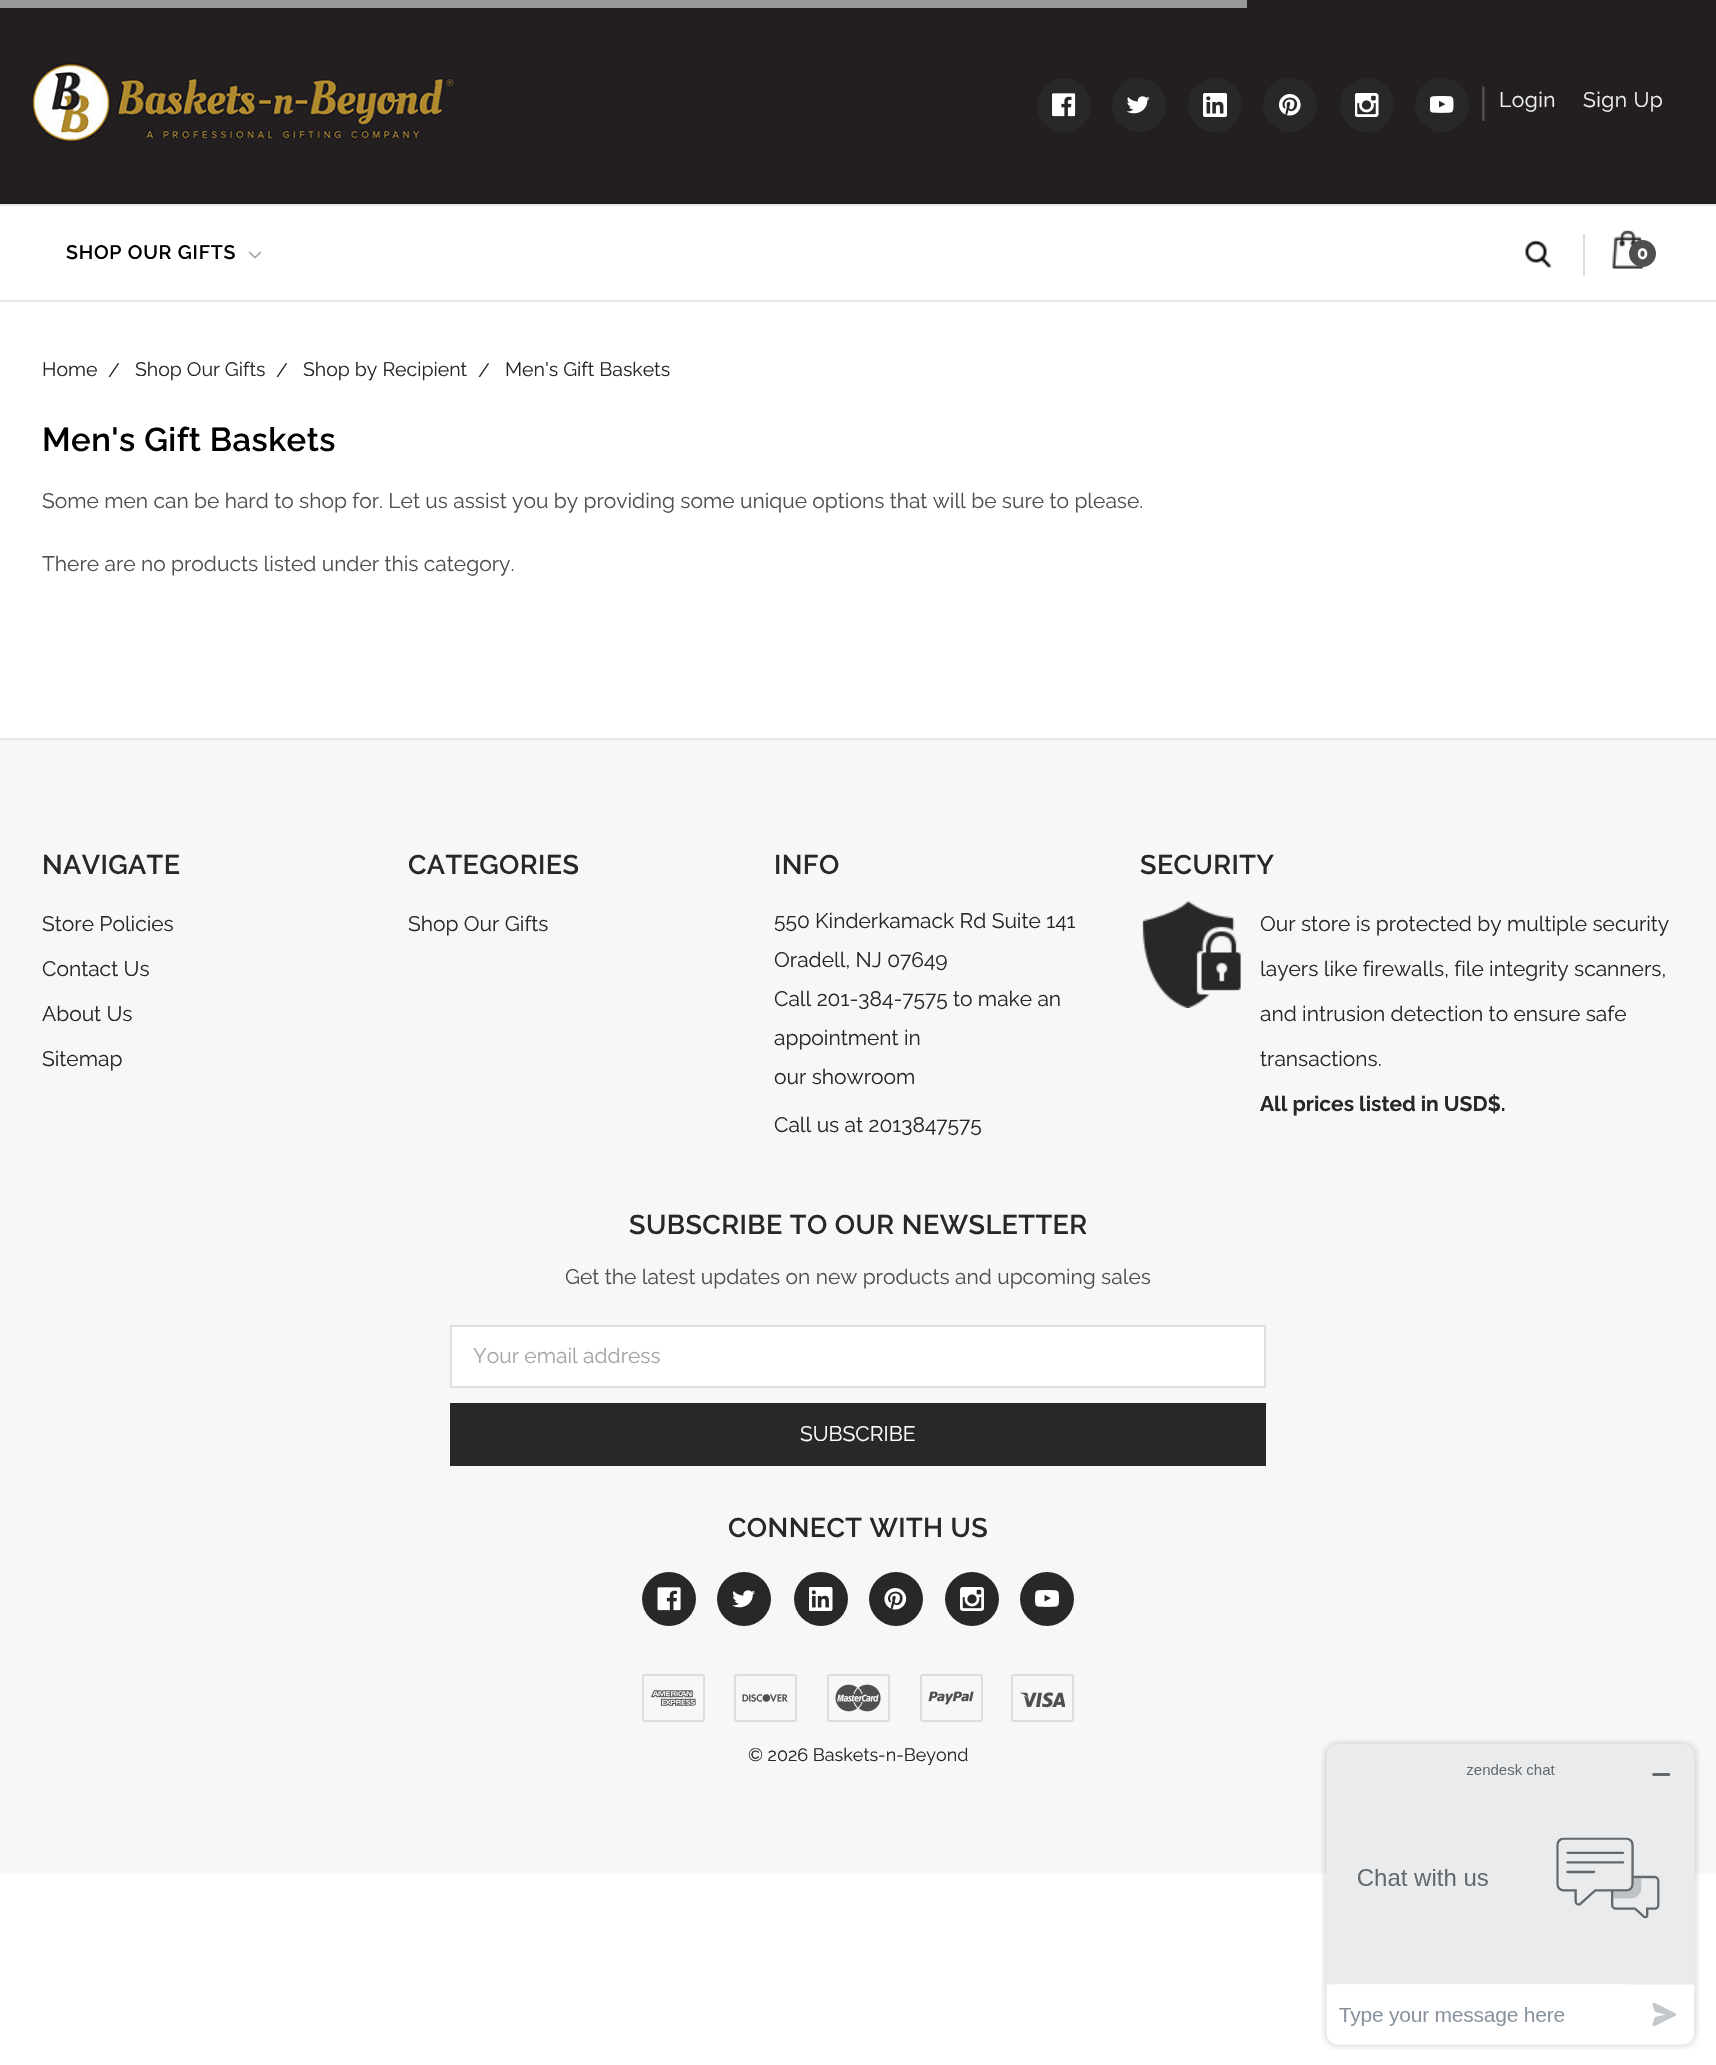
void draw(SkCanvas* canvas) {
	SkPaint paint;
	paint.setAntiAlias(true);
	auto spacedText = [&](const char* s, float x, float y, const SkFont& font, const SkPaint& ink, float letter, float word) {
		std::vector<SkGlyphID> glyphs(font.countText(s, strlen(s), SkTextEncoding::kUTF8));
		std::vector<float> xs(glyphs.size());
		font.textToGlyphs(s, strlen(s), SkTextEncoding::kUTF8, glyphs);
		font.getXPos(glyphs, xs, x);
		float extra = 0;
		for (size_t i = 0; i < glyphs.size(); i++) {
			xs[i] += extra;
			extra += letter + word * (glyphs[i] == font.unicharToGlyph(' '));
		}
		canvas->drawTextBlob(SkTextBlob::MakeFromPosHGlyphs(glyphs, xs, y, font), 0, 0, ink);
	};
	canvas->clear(0xffffffff);
	paint.setColor(0xff231f20);
	canvas->drawRect(SkRect::MakeXYWH(0, 0, 1716, 204), paint);
	paint.setColor(0xff989898);
	canvas->drawRect(SkRect::MakeXYWH(0, 0, 1247, 8), paint);
	paint.setColor(0xffe8e8e8);
	canvas->drawRect(SkRect::MakeXYWH(0, 300, 1716, 2), paint);
	canvas->drawRect(SkRect::MakeXYWH(0, 204, 1716, 2), paint);
	SkFont f1(fontMgr->matchFamilyStyle("Raleway", SkFontStyle(600, SkFontStyle::kNormal_Width, SkFontStyle::kUpright_Slant)), 19.5);
	f1.setSubpixel(true);
	paint.setColor(0xff000000);
	spacedText("SHOP OUR GIFTS", 66, 259, f1, paint, 0.75, 0);
	canvas->drawImageRect(SkImages::DeferredFromEncodedData(SkData::MakeFromFileName("img1.png")), SkRect::MakeXYWH(249, 251, 12, 8), SkSamplingOptions());
	canvas->drawImageRect(SkImages::DeferredFromEncodedData(SkData::MakeFromFileName("img2.png")), SkRect::MakeXYWH(1525, 240, 27, 29), SkSamplingOptions());
	paint.setColor(0xffdbdbdb);
	canvas->drawRect(SkRect::MakeXYWH(1583, 234, 2, 42), paint);
	canvas->drawImageRect(SkImages::DeferredFromEncodedData(SkData::MakeFromFileName("img3.png")), SkRect::MakeXYWH(31, 60, 426, 85), SkSamplingOptions());
	paint.setColor(0xff282828);
	canvas->drawCircle(1064, 105, 27, paint);
	canvas->drawImageRect(SkImages::DeferredFromEncodedData(SkData::MakeFromFileName("img4.png")), SkRect::MakeXYWH(1052, 93, 24, 24), SkSamplingOptions());
	canvas->drawCircle(1139, 105, 27, paint);
	canvas->drawImageRect(SkImages::DeferredFromEncodedData(SkData::MakeFromFileName("img5.png")), SkRect::MakeXYWH(1127, 96, 23, 18), SkSamplingOptions());
	canvas->drawCircle(1215, 105, 27, paint);
	canvas->drawImageRect(SkImages::DeferredFromEncodedData(SkData::MakeFromFileName("img6.png")), SkRect::MakeXYWH(1203, 93, 24, 24), SkSamplingOptions());
	canvas->drawCircle(1290, 105, 27, paint);
	canvas->drawImageRect(SkImages::DeferredFromEncodedData(SkData::MakeFromFileName("img7.png")), SkRect::MakeXYWH(1279, 94, 22, 22), SkSamplingOptions());
	canvas->drawCircle(1367, 105, 27, paint);
	canvas->drawImageRect(SkImages::DeferredFromEncodedData(SkData::MakeFromFileName("img8.png")), SkRect::MakeXYWH(1355, 93, 24, 24), SkSamplingOptions());
	canvas->drawCircle(1442, 105, 27, paint);
	canvas->drawImageRect(SkImages::DeferredFromEncodedData(SkData::MakeFromFileName("img9.png")), SkRect::MakeXYWH(1430, 96, 24, 17), SkSamplingOptions());
	SkFont f2(fontMgr->matchFamilyStyle("Raleway", SkFontStyle::Normal()), 38);
	f2.setSubpixel(true);
	paint.setColor(0xff4f4f4f);
	canvas->drawString("|", 1479, 116, f2, paint);
	SkFont f3(fontMgr->matchFamilyStyle("Raleway", SkFontStyle::Normal()), 21);
	f3.setSubpixel(true);
	paint.setColor(0xfff0f0f0);
	spacedText("Login", 1499, 107, f3, paint, 0.5, 0);
	spacedText("Sign Up", 1583, 107, f3, paint, 0.5, 0);
	canvas->drawImageRect(SkImages::DeferredFromEncodedData(SkData::MakeFromFileName("img10.png")), SkRect::MakeXYWH(1612, 230, 33, 39), SkSamplingOptions());
	paint.setColor(0xff4f4f4f);
	canvas->drawCircle(1642.5, 253.5, 13.5, paint);
	SkFont f4(fontMgr->matchFamilyStyle("Raleway", SkFontStyle::Bold()), 18);
	f4.setSubpixel(true);
	paint.setColor(0xffffffff);
	spacedText("0", 1637, 259, f4, paint, 0.5, 0);
	SkFont f5(fontMgr->matchFamilyStyle("Raleway", SkFontStyle::Normal()), 19.5);
	f5.setSubpixel(true);
	paint.setColor(0xff282828);
	canvas->drawString("Home", 42, 376, f5, paint);
	canvas->drawString("/", 108, 377, f5, paint);
	canvas->drawString("Shop Our Gifts", 135, 376, f5, paint);
	canvas->drawString("/", 276, 377, f5, paint);
	canvas->drawString("Shop by Recipient", 303, 376, f5, paint);
	canvas->drawString("/", 478, 377, f5, paint);
	canvas->drawString("Men's Gift Baskets", 505, 376, f5, paint);
	SkFont f6(fontMgr->matchFamilyStyle("Raleway", SkFontStyle(600, SkFontStyle::kNormal_Width, SkFontStyle::kUpright_Slant)), 33);
	f6.setSubpixel(true);
	paint.setColor(0xff000000);
	spacedText("Men's Gift Baskets", 42, 451, f6, paint, 0.4, 0);
	paint.setColor(0xff4f4f4f);
	canvas->drawString("Some men can be hard to shop for. Let us assist you by providing some unique options that will be sure to please.", 42, 508, f3, paint);
	canvas->drawString("There are no products listed under this category.", 42, 571, f3, paint);
	paint.setColor(0xfff7f7f7);
	canvas->drawRect(SkRect::MakeXYWH(0, 740, 1716, 1134), paint);
	paint.setColor(0xffe8e8e8);
	canvas->drawRect(SkRect::MakeXYWH(0, 738, 1716, 2), paint);
	SkFont f7(fontMgr->matchFamilyStyle("Raleway", SkFontStyle(600, SkFontStyle::kNormal_Width, SkFontStyle::kUpright_Slant)), 27);
	f7.setSubpixel(true);
	paint.setColor(0xff282828);
	spacedText("NAVIGATE", 42, 874, f7, paint, 0.4, 0);
	canvas->drawString("Store Policies", 42, 931, f3, paint);
	canvas->drawString("Contact Us", 42, 976, f3, paint);
	canvas->drawString("About Us", 42, 1021, f3, paint);
	canvas->drawString("Sitemap", 42, 1066, f3, paint);
	spacedText("CATEGORIES", 408, 874, f7, paint, 0.4, 0);
	canvas->drawString("Shop Our Gifts", 408, 931, f3, paint);
	spacedText("INFO", 774, 874, f7, paint, 0.4, 0);
	canvas->drawString("550 Kinderkamack Rd Suite 141", 774, 928, f3, paint);
	canvas->drawString("Oradell, NJ 07649", 774, 967, f3, paint);
	canvas->drawString("Call 201-384-7575 to make an", 774, 1006, f3, paint);
	canvas->drawString("appointment in", 774, 1045, f3, paint);
	canvas->drawString("our showroom", 774, 1084, f3, paint);
	canvas->drawString("Call us at 2013847575", 774, 1132, f3, paint);
	spacedText("SECURITY", 1140, 874, f7, paint, 0.4, 0);
	canvas->drawImageRect(SkImages::DeferredFromEncodedData(SkData::MakeFromFileName("img11.png")), SkRect::MakeXYWH(1142, 901, 99, 107), SkSamplingOptions());
	canvas->drawString("Our store is protected by multiple security", 1260, 931, f3, paint);
	canvas->drawString("layers like firewalls, file integrity scanners,", 1260, 976, f3, paint);
	canvas->drawString("and intrusion detection to ensure safe", 1260, 1021, f3, paint);
	canvas->drawString("transactions.", 1260, 1066, f3, paint);
	SkFont f8(fontMgr->matchFamilyStyle("Raleway", SkFontStyle::Bold()), 21);
	f8.setSubpixel(true);
	canvas->drawString("All prices listed in USD$.", 1260, 1111, f8, paint);
	spacedText("SUBSCRIBE TO OUR NEWSLETTER", 629, 1234, f7, paint, 0.45, 0);
	paint.setColor(0xff4f4f4f);
	canvas->drawString("Get the latest updates on new products and upcoming sales", 565, 1284, f3, paint);
	paint.setColor(0xffffffff);
	canvas->drawRect(SkRect::MakeXYWH(451, 1326, 814, 61), paint);
	paint.setStroke(true);
	paint.setStrokeWidth(2);
	paint.setColor(0xffdfdfdf);
	canvas->drawRect(SkRect::MakeXYWH(451, 1326, 814, 61), paint);
	paint.setStroke(false);
	paint.setColor(0xffa5a5a5);
	canvas->drawString("Your email address", 473, 1363, f3, paint);
	paint.setColor(0xff282828);
	canvas->drawRect(SkRect::MakeXYWH(450, 1403, 816, 63), paint);
	paint.setColor(0xffffffff);
	canvas->drawString("SUBSCRIBE", 800, 1441, f3, paint);
	paint.setColor(0xff282828);
	spacedText("CONNECT WITH US", 728, 1537, f7, paint, 0.4, 0);
	canvas->drawCircle(669, 1599, 27, paint);
	canvas->drawImageRect(SkImages::DeferredFromEncodedData(SkData::MakeFromFileName("img12.png")), SkRect::MakeXYWH(657, 1587, 24, 24), SkSamplingOptions());
	canvas->drawCircle(744, 1599, 27, paint);
	canvas->drawImageRect(SkImages::DeferredFromEncodedData(SkData::MakeFromFileName("img13.png")), SkRect::MakeXYWH(732, 1590, 23, 18), SkSamplingOptions());
	canvas->drawCircle(821, 1599, 27, paint);
	canvas->drawImageRect(SkImages::DeferredFromEncodedData(SkData::MakeFromFileName("img14.png")), SkRect::MakeXYWH(809, 1587, 24, 24), SkSamplingOptions());
	canvas->drawCircle(896, 1599, 27, paint);
	canvas->drawImageRect(SkImages::DeferredFromEncodedData(SkData::MakeFromFileName("img15.png")), SkRect::MakeXYWH(884, 1588, 23, 22), SkSamplingOptions());
	canvas->drawCircle(972, 1599, 27, paint);
	canvas->drawImageRect(SkImages::DeferredFromEncodedData(SkData::MakeFromFileName("img16.png")), SkRect::MakeXYWH(960, 1587, 24, 24), SkSamplingOptions());
	canvas->drawCircle(1047, 1599, 27, paint);
	canvas->drawImageRect(SkImages::DeferredFromEncodedData(SkData::MakeFromFileName("img17.png")), SkRect::MakeXYWH(1035, 1590, 24, 17), SkSamplingOptions());
	paint.setStroke(true);
	paint.setColor(0xffdddddd);
	canvas->drawRoundRect(SkRect::MakeXYWH(643, 1675, 61, 46), 2, 2, paint);
	canvas->drawRoundRect(SkRect::MakeXYWH(735, 1675, 61, 46), 2, 2, paint);
	canvas->drawRoundRect(SkRect::MakeXYWH(828, 1675, 61, 46), 2, 2, paint);
	canvas->drawRoundRect(SkRect::MakeXYWH(921, 1675, 61, 46), 2, 2, paint);
	canvas->drawRoundRect(SkRect::MakeXYWH(1012, 1675, 61, 46), 2, 2, paint);
	canvas->drawImageRect(SkImages::DeferredFromEncodedData(SkData::MakeFromFileName("img18.png")), SkRect::MakeXYWH(651, 1690, 45, 16), SkSamplingOptions());
	canvas->drawImageRect(SkImages::DeferredFromEncodedData(SkData::MakeFromFileName("img19.png")), SkRect::MakeXYWH(742, 1694, 46, 8), SkSamplingOptions());
	canvas->drawImageRect(SkImages::DeferredFromEncodedData(SkData::MakeFromFileName("img20.png")), SkRect::MakeXYWH(835, 1684, 46, 28), SkSamplingOptions());
	canvas->drawImageRect(SkImages::DeferredFromEncodedData(SkData::MakeFromFileName("img21.png")), SkRect::MakeXYWH(928, 1691, 46, 14), SkSamplingOptions());
	canvas->drawImageRect(SkImages::DeferredFromEncodedData(SkData::MakeFromFileName("img22.png")), SkRect::MakeXYWH(1020, 1692, 45, 16), SkSamplingOptions());
	SkFont f9(fontMgr->matchFamilyStyle("Raleway", SkFontStyle::Normal()), 18);
	f9.setSubpixel(true);
	paint.setStroke(false);
	paint.setColor(0xff282828);
	canvas->drawString("© 2026 Baskets-n-Beyond", 748, 1761, f9, paint);
	canvas->drawImageRect(SkImages::DeferredFromEncodedData(SkData::MakeFromFileName("img23.png")), SkRect::MakeXYWH(1321, 1739, 379, 311), SkSamplingOptions());
}
